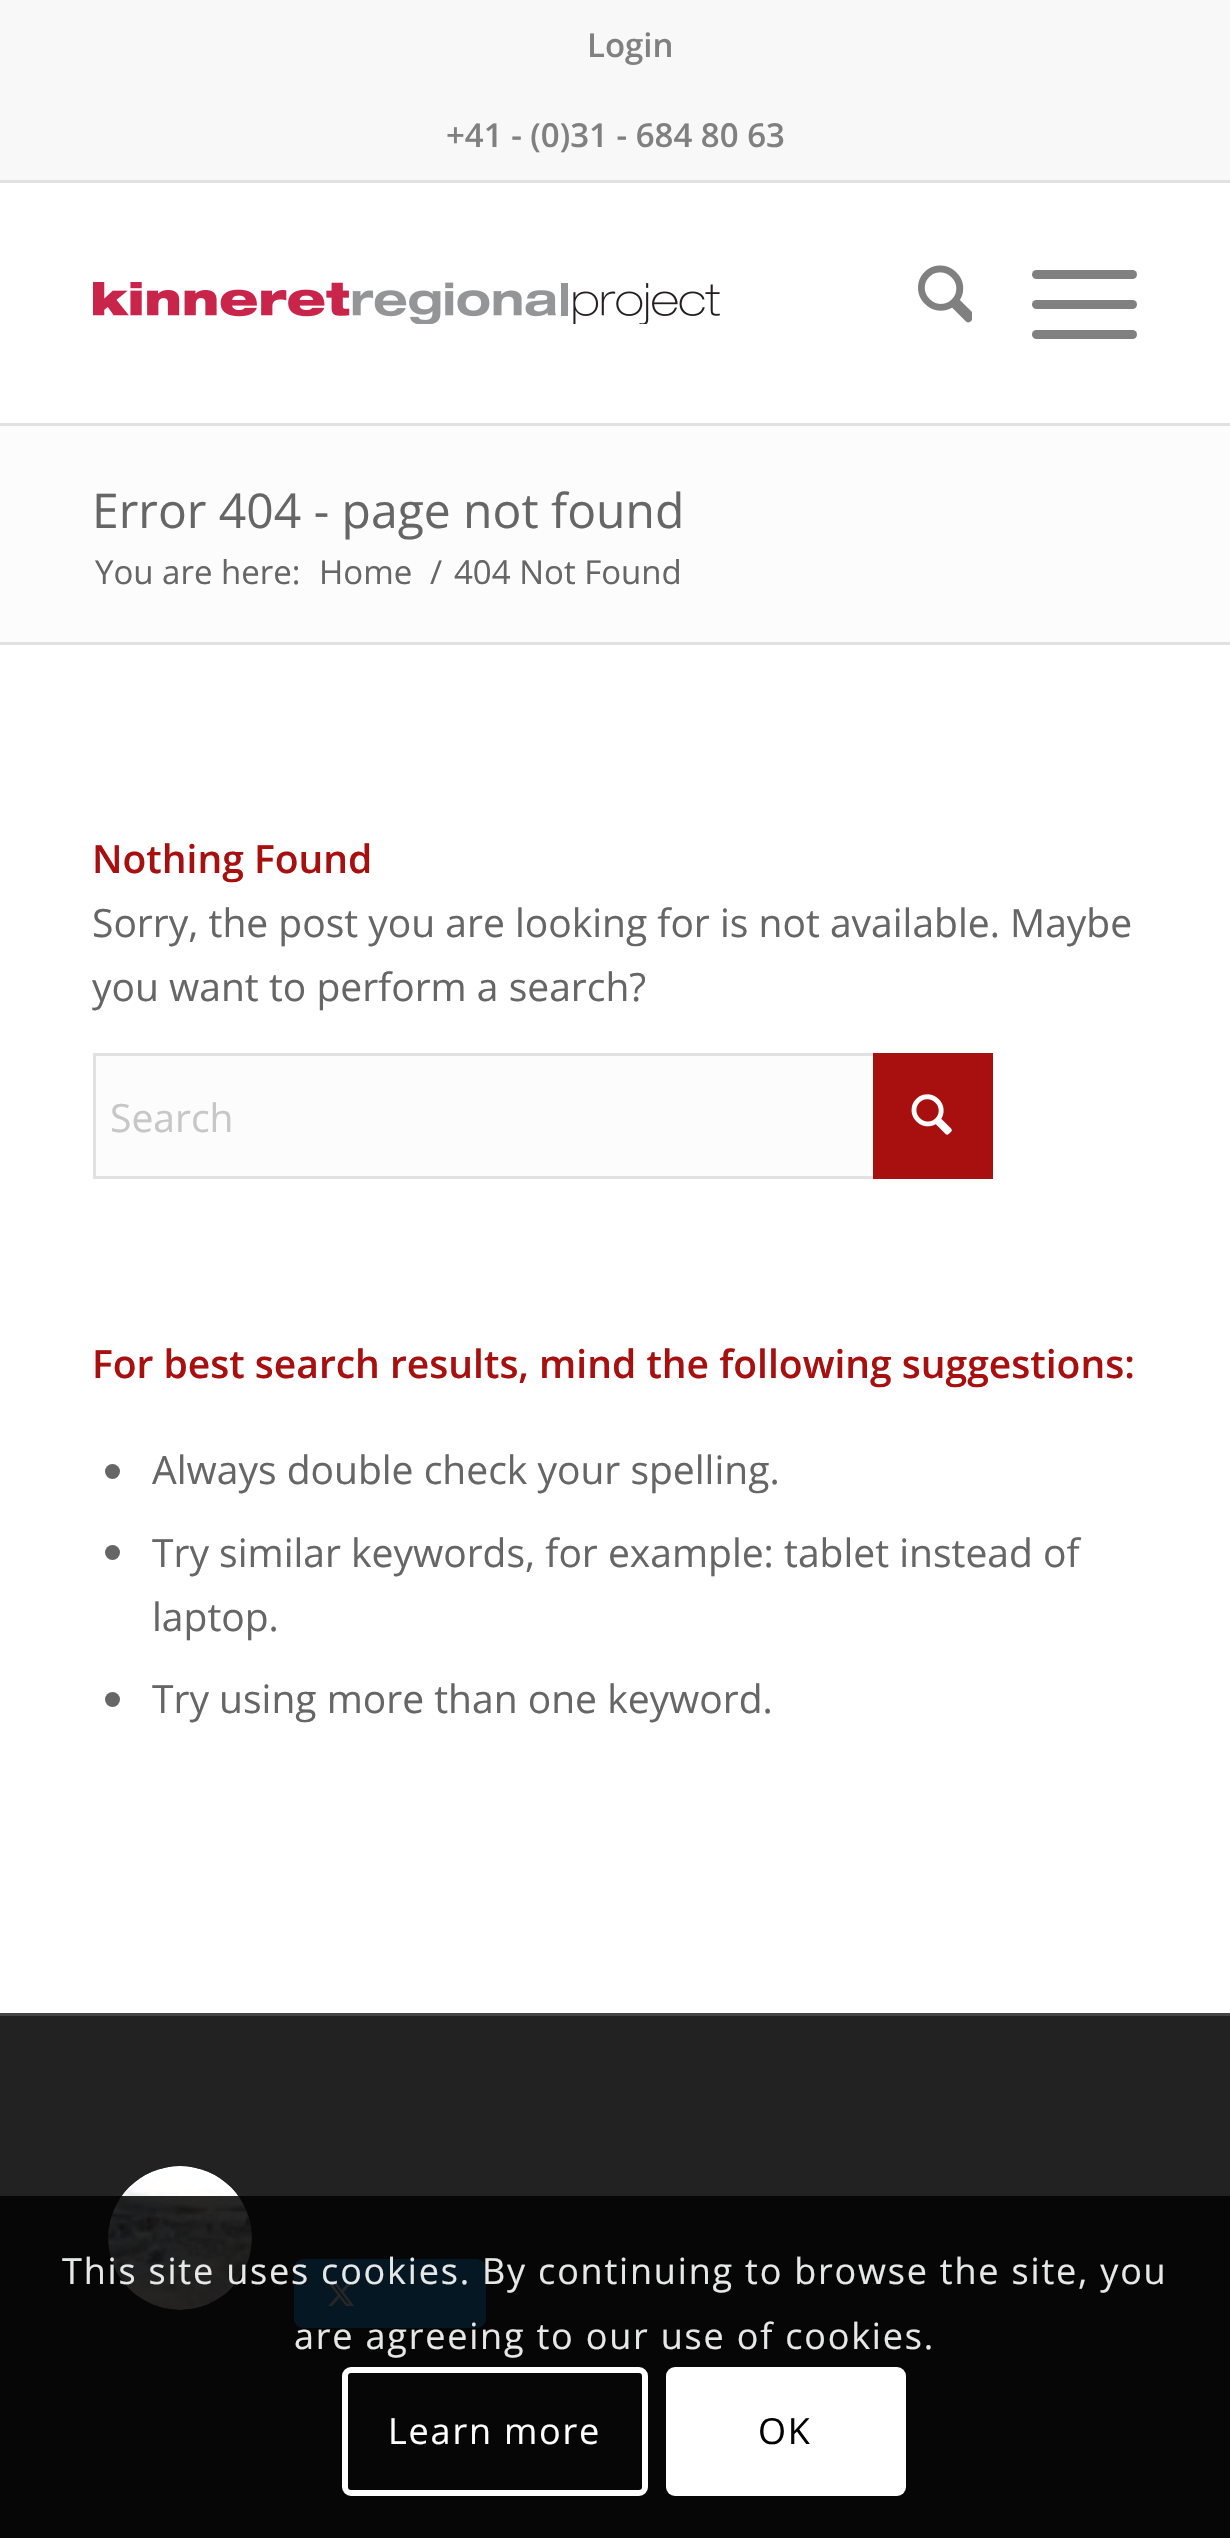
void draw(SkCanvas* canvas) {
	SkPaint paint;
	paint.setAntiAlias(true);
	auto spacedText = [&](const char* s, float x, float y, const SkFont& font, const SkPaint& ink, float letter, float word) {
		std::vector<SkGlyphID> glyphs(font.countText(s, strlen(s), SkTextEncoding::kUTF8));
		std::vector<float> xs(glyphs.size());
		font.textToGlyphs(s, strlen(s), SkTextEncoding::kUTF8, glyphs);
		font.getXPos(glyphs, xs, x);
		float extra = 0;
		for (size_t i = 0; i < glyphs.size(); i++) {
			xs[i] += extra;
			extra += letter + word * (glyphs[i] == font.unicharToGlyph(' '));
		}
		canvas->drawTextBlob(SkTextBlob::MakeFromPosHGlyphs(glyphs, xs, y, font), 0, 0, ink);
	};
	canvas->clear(0xffffffff);
	paint.setColor(0xfff8f8f8);
	canvas->drawRect(SkRect::MakeXYWH(0, 0, 1230, 180), paint);
	paint.setColor(0xffe1e1e1);
	canvas->drawRect(SkRect::MakeXYWH(0, 180, 1230, 3), paint);
	SkFont f1(fontMgr->matchFamilyStyle("Open Sans", SkFontStyle(600, SkFontStyle::kNormal_Width, SkFontStyle::kUpright_Slant)), 33);
	f1.setSubpixel(true);
	paint.setColor(0xff808080);
	canvas->drawString("Login", 587, 57, f1, paint);
	canvas->drawString("+41 - (0)31 - 684 80 63", 446, 147, f1, paint);
	paint.setColor(0xffe1e1e1);
	canvas->drawRect(SkRect::MakeXYWH(0, 423, 1230, 3), paint);
	canvas->drawImageRect(SkImages::DeferredFromEncodedData(SkData::MakeFromFileName("img1.png")), SkRect::MakeXYWH(93, 282, 627, 42), SkSamplingOptions());
	canvas->drawImageRect(SkImages::DeferredFromEncodedData(SkData::MakeFromFileName("img2.png")), SkRect::MakeXYWH(918, 265, 54, 58), SkSamplingOptions());
	paint.setColor(0xff808080);
	canvas->drawRoundRect(SkRect::MakeXYWH(1032, 300, 105, 9), 4.5, 4.5, paint);
	canvas->drawRoundRect(SkRect::MakeXYWH(1032, 270, 105, 9), 4.5, 4.5, paint);
	canvas->drawRoundRect(SkRect::MakeXYWH(1032, 330, 105, 9), 4.5, 4.5, paint);
	paint.setColor(0xfffcfcfc);
	canvas->drawRect(SkRect::MakeXYWH(0, 426, 1230, 216), paint);
	SkFont f2(fontMgr->matchFamilyStyle("Open Sans", SkFontStyle::Normal()), 48);
	f2.setSubpixel(true);
	paint.setColor(0xff666666);
	canvas->drawString("Error 404 - page not found", 92, 528, f2, paint);
	SkFont f3(fontMgr->matchFamilyStyle("Open Sans", SkFontStyle::Normal()), 33);
	f3.setSubpixel(true);
	canvas->drawString("You are here:", 95, 584, f3, paint);
	canvas->drawString("Home", 319, 584, f3, paint);
	canvas->drawString("/", 430, 584, f3, paint);
	canvas->drawString("404 Not Found", 454, 584, f3, paint);
	paint.setColor(0xffe1e1e1);
	canvas->drawRect(SkRect::MakeXYWH(0, 642, 1230, 3), paint);
	SkFont f4(fontMgr->matchFamilyStyle("Open Sans", SkFontStyle(600, SkFontStyle::kNormal_Width, SkFontStyle::kUpright_Slant)), 39);
	f4.setSubpixel(true);
	paint.setColor(0xffa81010);
	canvas->drawString("Nothing Found", 92, 873, f4, paint);
	SkFont f5(fontMgr->matchFamilyStyle("Open Sans", SkFontStyle::Normal()), 39);
	f5.setSubpixel(true);
	paint.setColor(0xff666666);
	canvas->drawString("Sorry, the post you are looking for is not available. Maybe", 92, 937, f5, paint);
	canvas->drawString("you want to perform a search?", 92, 1001, f5, paint);
	paint.setColor(0xfffcfcfc);
	canvas->drawRect(SkRect::MakeXYWH(96, 1056, 777, 120), paint);
	paint.setStroke(true);
	paint.setStrokeWidth(3);
	paint.setColor(0xffe1e1e1);
	canvas->drawRect(SkRect::MakeXYWH(94.5, 1054.5, 897, 123), paint);
	paint.setStroke(false);
	paint.setColor(0xffa81010);
	canvas->drawRect(SkRect::MakeXYWH(873, 1053, 120, 126), paint);
	paint.setColor(0xffc7c7c7);
	canvas->drawString("Search", 110, 1132, f5, paint);
	canvas->drawImageRect(SkImages::DeferredFromEncodedData(SkData::MakeFromFileName("img3.png")), SkRect::MakeXYWH(911, 1094, 41, 41), SkSamplingOptions());
	paint.setColor(0xffa81010);
	canvas->drawString("For best search results, mind the following suggestions:", 92, 1378, f4, paint);
	paint.setColor(0xff666666);
	canvas->drawCircle(112.5, 1471.5, 7.5, paint);
	canvas->drawString("Always double check your spelling.", 152, 1484, f5, paint);
	canvas->drawCircle(112.5, 1552.5, 7.5, paint);
	canvas->drawString("Try similar keywords, for example: tablet instead of", 152, 1567, f5, paint);
	canvas->drawString("laptop.", 152, 1631, f5, paint);
	canvas->drawCircle(112.5, 1699.5, 7.5, paint);
	canvas->drawString("Try using more than one keyword.", 152, 1713, f5, paint);
	paint.setColor(0xff222222);
	canvas->drawRect(SkRect::MakeXYWH(0, 2016, 1230, 522), paint);
	paint.setColor(0xff444444);
	canvas->drawRect(SkRect::MakeXYWH(0, 2013, 1230, 3), paint);
	canvas->drawImageRect(SkImages::DeferredFromEncodedData(SkData::MakeFromFileName("img4.png")), SkRect::MakeXYWH(108, 2166, 144, 144), SkSamplingOptions());
	paint.setColor(0xff1b95e0);
	canvas->drawRoundRect(SkRect::MakeXYWH(294, 2259, 192, 69), 9, 9, paint);
	canvas->drawImageRect(SkImages::DeferredFromEncodedData(SkData::MakeFromFileName("img5.png")), SkRect::MakeXYWH(327, 2282, 27, 24), SkSamplingOptions());
	paint.setColor(0xd9000000);
	canvas->drawRect(SkRect::MakeXYWH(0, 2196, 1230, 342), paint);
	SkFont f6(fontMgr->matchFamilyStyle("Open Sans", SkFontStyle::Normal()), 36);
	f6.setSubpixel(true);
	paint.setColor(0xffe6e7e7);
	spacedText("This site uses cookies. By continuing to browse the site, you", 62, 2284, f6, paint, 1.8, 0);
	spacedText("are agreeing to our use of cookies.", 294, 2349, f6, paint, 1.8, 0);
	paint.setStroke(true);
	paint.setStrokeWidth(6);
	paint.setColor(0xffffffff);
	canvas->drawRoundRect(SkRect::MakeXYWH(345, 2370, 300, 123), 6, 6, paint);
	paint.setStroke(false);
	spacedText("Learn more", 388, 2444, f6, paint, 1.8, 0);
	canvas->drawRoundRect(SkRect::MakeXYWH(666, 2367, 240, 129), 9, 9, paint);
	paint.setColor(0xff000000);
	spacedText("OK", 758, 2444, f6, paint, 1.8, 0);
}
